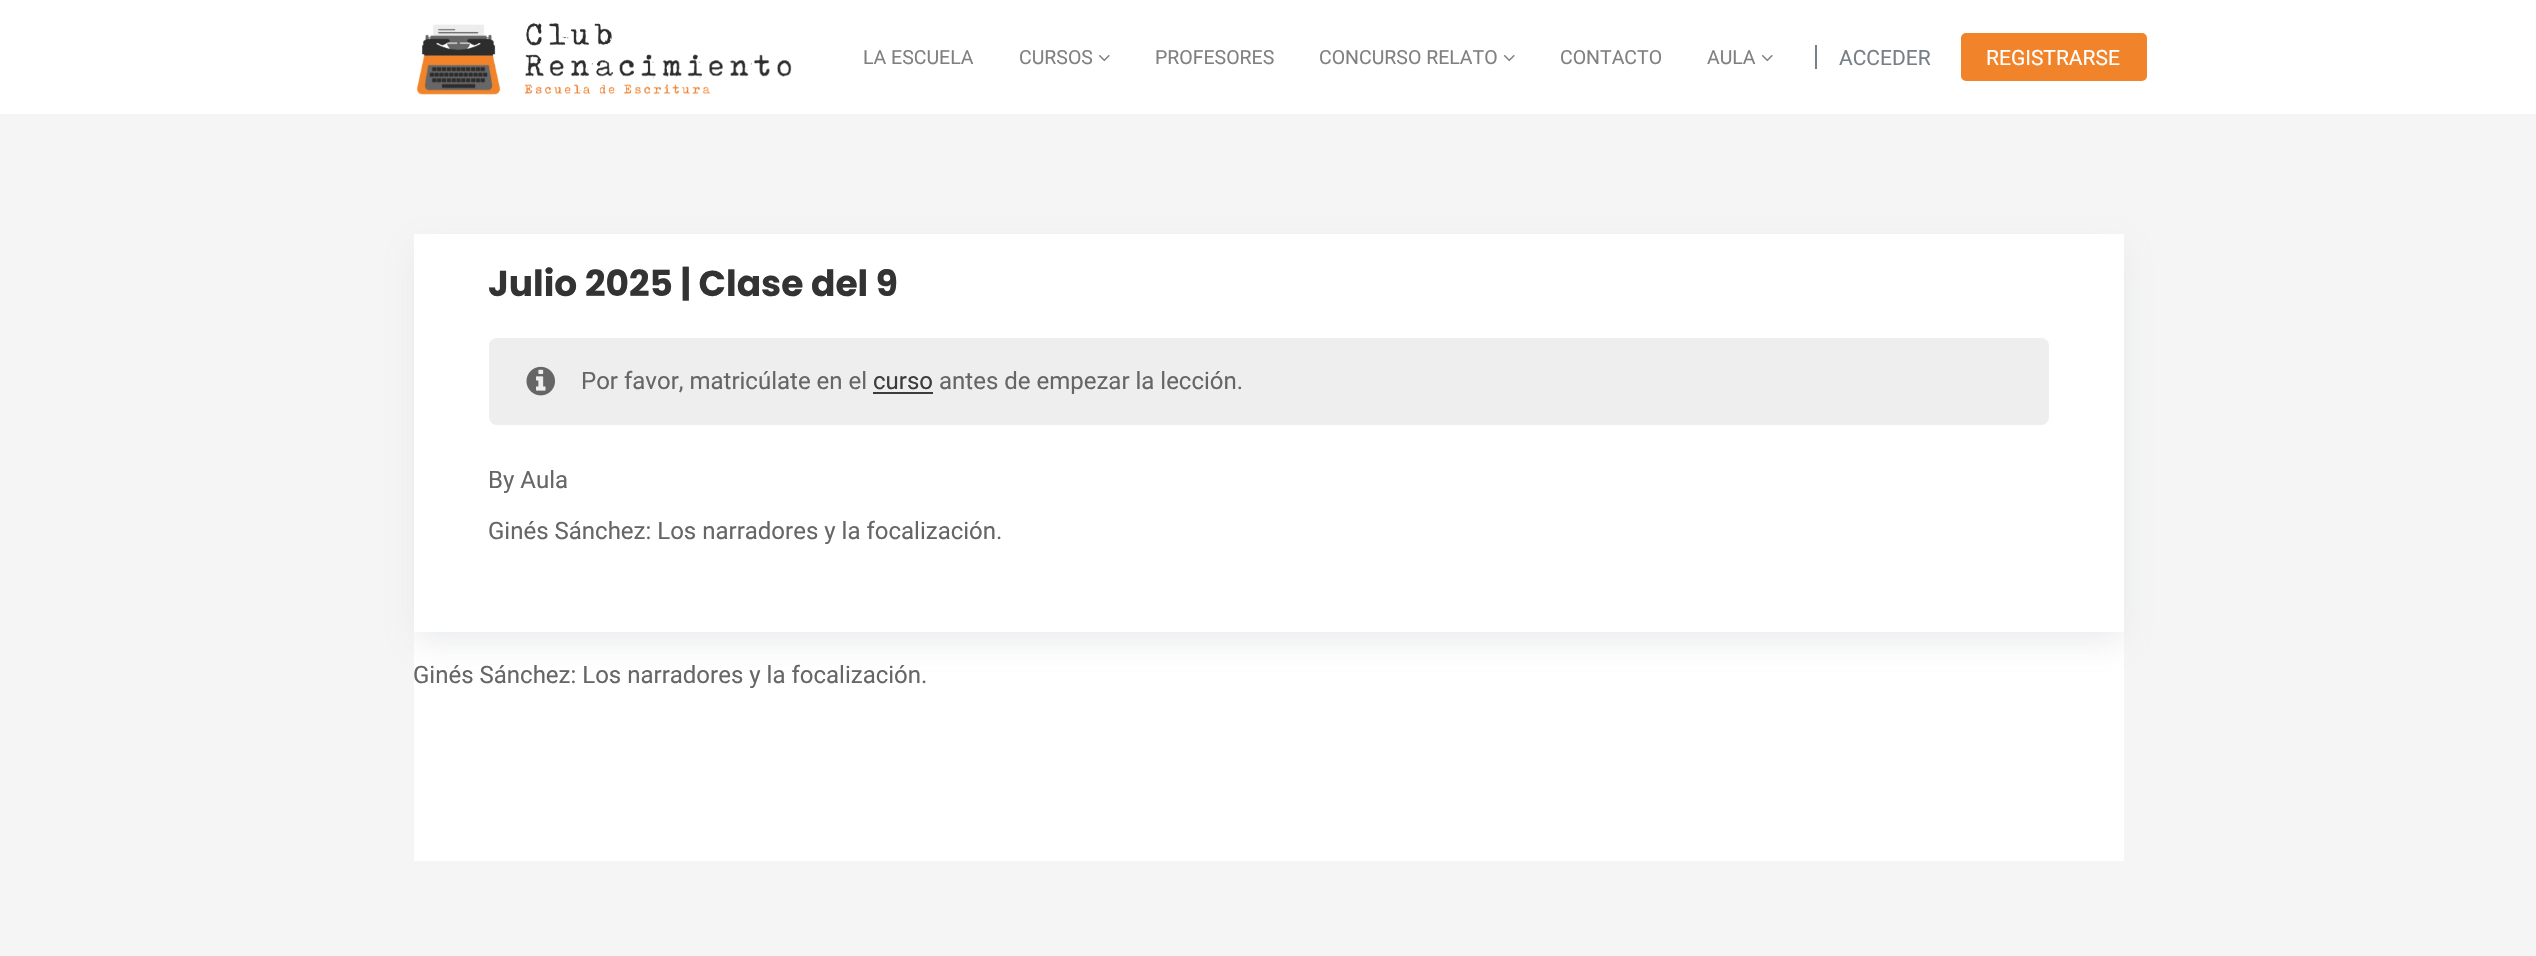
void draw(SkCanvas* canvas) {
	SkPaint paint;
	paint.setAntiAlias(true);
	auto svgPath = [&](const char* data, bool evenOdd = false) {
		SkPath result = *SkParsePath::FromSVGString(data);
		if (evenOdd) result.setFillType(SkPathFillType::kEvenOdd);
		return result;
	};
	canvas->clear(0xfff5f5f5);
	paint.setColor(0xffffffff);
	canvas->drawRect(SkRect::MakeXYWH(0, 0, 2536, 114), paint);
	canvas->drawImageRect(SkImages::DeferredFromEncodedData(SkData::MakeFromFileName("img1.png")), SkRect::MakeXYWH(416, 23, 376, 72), SkSamplingOptions());
	SkFont f1(fontMgr->matchFamilyStyle("Roboto", SkFontStyle::Normal()), 19.5);
	f1.setSubpixel(true);
	paint.setColor(0xff808080);
	canvas->drawString("LA ESCUELA", 863, 64, f1, paint);
	canvas->drawString("CURSOS", 1019, 64, f1, paint);
	canvas->drawImageRect(SkImages::DeferredFromEncodedData(SkData::MakeFromFileName("img2.png")), SkRect::MakeXYWH(1098, 55, 12, 7), SkSamplingOptions());
	canvas->drawString("PROFESORES", 1155, 64, f1, paint);
	canvas->drawString("CONCURSO RELATO", 1319, 64, f1, paint);
	canvas->drawImageRect(SkImages::DeferredFromEncodedData(SkData::MakeFromFileName("img2.png")), SkRect::MakeXYWH(1503, 55, 12, 7), SkSamplingOptions());
	canvas->drawString("CONTACTO", 1560, 64, f1, paint);
	canvas->drawString("AULA", 1707, 64, f1, paint);
	canvas->drawImageRect(SkImages::DeferredFromEncodedData(SkData::MakeFromFileName("img2.png")), SkRect::MakeXYWH(1761, 55, 12, 7), SkSamplingOptions());
	SkFont f2(fontMgr->matchFamilyStyle("Roboto", SkFontStyle::Normal()), 21);
	f2.setSubpixel(true);
	paint.setColor(0xff787f88);
	canvas->drawString("ACCEDER", 1839, 65, f2, paint);
	canvas->drawRect(SkRect::MakeXYWH(1815, 45, 2, 24), paint);
	paint.setColor(0xfff1842a);
	canvas->drawRoundRect(SkRect::MakeXYWH(1962.5, 34.5, 183, 45), 3.5, 3.5, paint);
	paint.setStroke(true);
	paint.setStrokeWidth(3);
	canvas->drawRoundRect(SkRect::MakeXYWH(1962.5, 34.5, 183, 45), 3.5, 3.5, paint);
	paint.setStroke(false);
	paint.setColor(0xffffffff);
	canvas->drawString("REGISTRARSE", 1986, 65, f2, paint);
	canvas->drawRect(SkRect::MakeXYWH(414, 234, 1710, 627), paint);
	canvas->save();
	canvas->clipPath(svgPath("M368 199H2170V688H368ZM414 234H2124V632H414Z", true), true);
	paint.setColor(0xe6e8e9eb);
	paint.setMaskFilter(SkMaskFilter::MakeBlur(kNormal_SkBlurStyle, 15));
	canvas->drawRect(SkRect::MakeXYWH(414, 245, 1710, 397), paint);
	paint.setMaskFilter(nullptr);
	canvas->restore();
	SkFont f3(fontMgr->matchFamilyStyle("Poppins", SkFontStyle::Bold()), 36);
	f3.setSubpixel(true);
	paint.setColor(0xff333333);
	canvas->drawString("Julio 2025 | Clase del 9", 488, 296, f3, paint);
	paint.setColor(0xffeeeeee);
	canvas->drawRoundRect(SkRect::MakeXYWH(489, 338, 1560, 87), 8, 8, paint);
	canvas->drawImageRect(SkImages::DeferredFromEncodedData(SkData::MakeFromFileName("img3.png")), SkRect::MakeXYWH(526, 366, 29, 30), SkSamplingOptions());
	SkFont f4(fontMgr->matchFamilyStyle("Roboto", SkFontStyle::Normal()), 24);
	f4.setSubpixel(true);
	paint.setColor(0xff666666);
	canvas->drawString("Por favor, matricúlate en el", 581, 389, f4, paint);
	paint.setColor(0xff3c3c3c);
	canvas->drawString("curso", 873, 389, f4, paint);
	canvas->drawRect(SkRect::MakeXYWH(873, 392, 60, 2), paint);
	paint.setColor(0xff666666);
	canvas->drawString("antes de empezar la lección.", 939, 389, f4, paint);
	canvas->drawString("By Aula", 488, 488, f4, paint);
	canvas->drawString("Ginés Sánchez: Los narradores y la focalización.", 488, 539, f4, paint);
	canvas->drawString("Ginés Sánchez: Los narradores y la focalización.", 413, 683, f4, paint);
}
